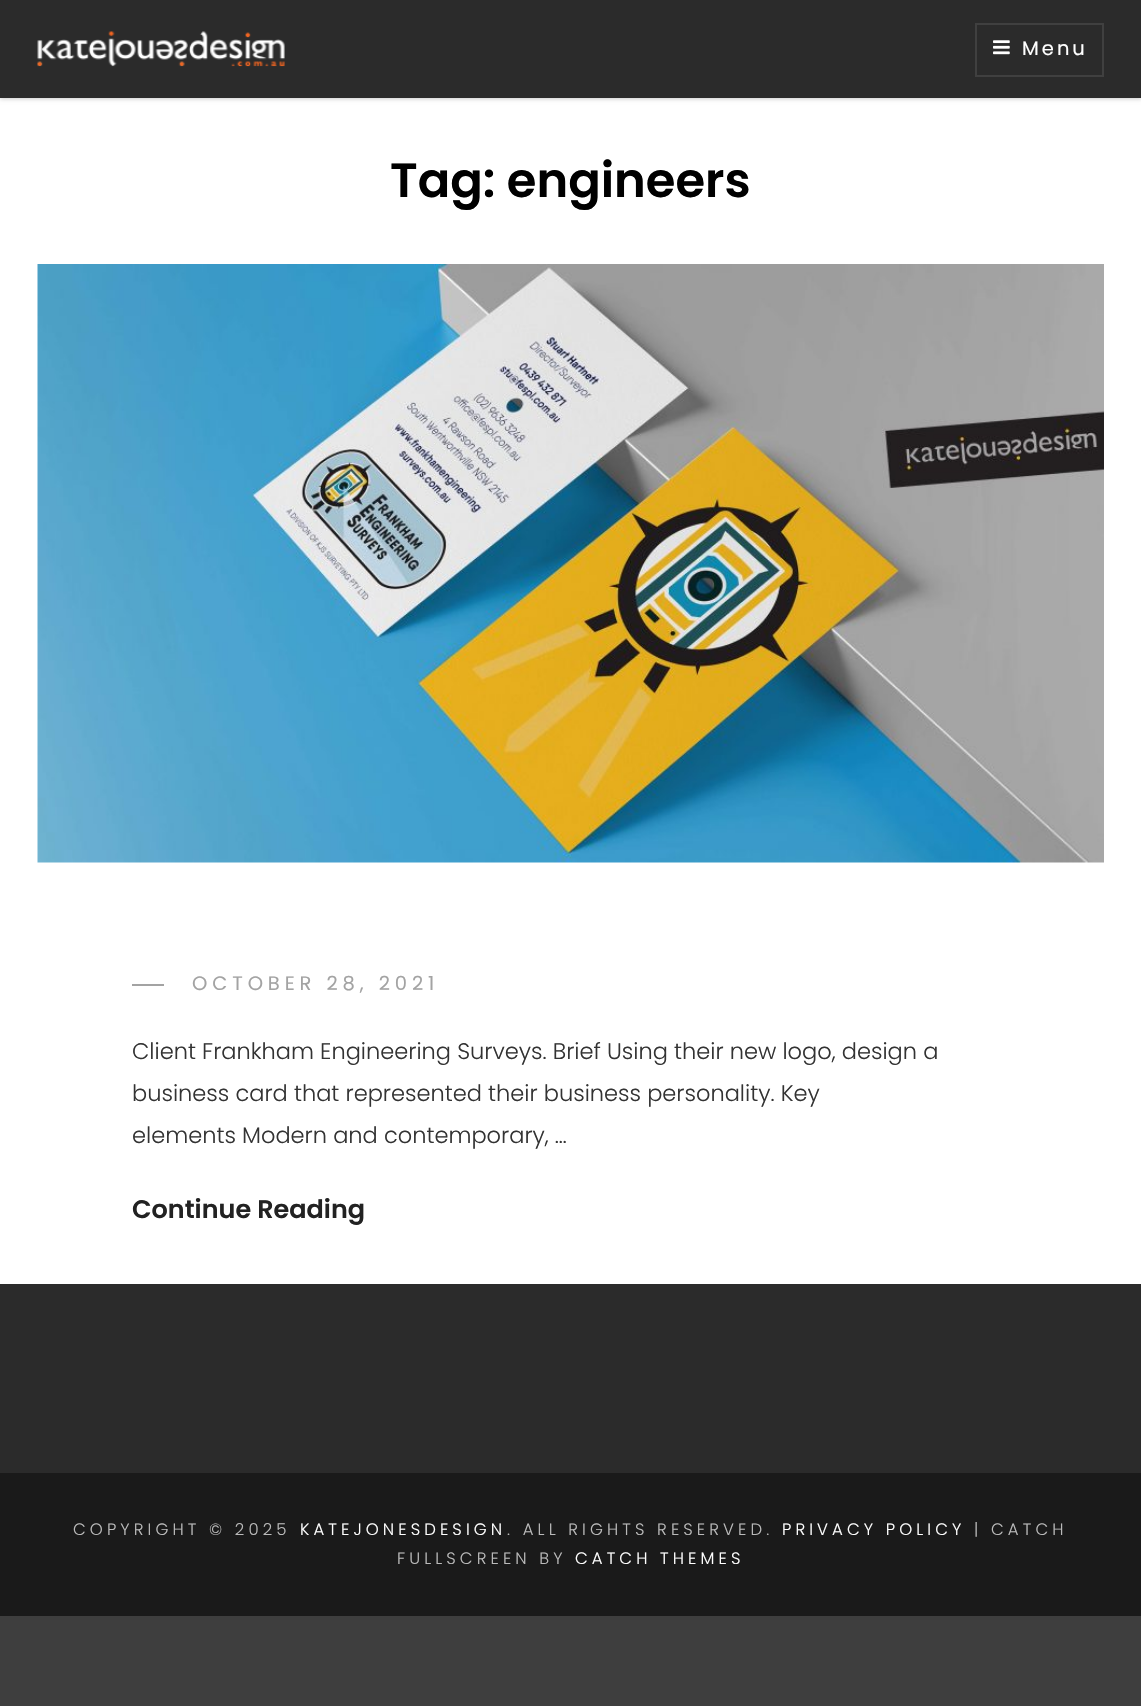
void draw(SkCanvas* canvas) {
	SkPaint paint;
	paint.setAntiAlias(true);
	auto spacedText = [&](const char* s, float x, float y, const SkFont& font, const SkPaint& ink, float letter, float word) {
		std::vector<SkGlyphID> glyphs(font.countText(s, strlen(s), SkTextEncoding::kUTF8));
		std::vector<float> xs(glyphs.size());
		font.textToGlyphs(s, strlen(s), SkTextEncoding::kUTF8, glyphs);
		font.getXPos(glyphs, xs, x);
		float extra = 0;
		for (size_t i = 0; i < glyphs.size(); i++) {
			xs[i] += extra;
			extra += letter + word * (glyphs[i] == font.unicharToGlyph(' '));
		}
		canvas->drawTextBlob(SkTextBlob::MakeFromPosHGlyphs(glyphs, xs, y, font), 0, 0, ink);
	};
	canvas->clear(0xff3e3e3e);
	paint.setColor(0xffffffff);
	canvas->drawRect(SkRect::MakeXYWH(0, 98, 1141, 1186), paint);
	paint.setColor(0x33000000);
	paint.setMaskFilter(SkMaskFilter::MakeBlur(kNormal_SkBlurStyle, 2));
	canvas->drawRect(SkRect::MakeXYWH(0, 2, 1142, 97), paint);
	paint.setMaskFilter(nullptr);
	paint.setColor(0xff2b2b2b);
	canvas->drawRect(SkRect::MakeXYWH(0, 0, 1141, 98), paint);
	canvas->drawImageRect(SkImages::DeferredFromEncodedData(SkData::MakeFromFileName("img1.png")), SkRect::MakeXYWH(37, 31, 248, 36), SkSamplingOptions());
	paint.setStroke(true);
	paint.setStrokeWidth(2);
	paint.setColor(0xff404040);
	canvas->drawRect(SkRect::MakeXYWH(976, 24, 127, 52), paint);
	canvas->drawImageRect(SkImages::DeferredFromEncodedData(SkData::MakeFromFileName("img2.png")), SkRect::MakeXYWH(993, 40, 17, 15), SkSamplingOptions());
	SkFont f1(fontMgr->matchFamilyStyle("Poppins", SkFontStyle::Normal()), 19.5);
	f1.setSubpixel(true);
	paint.setStroke(false);
	paint.setColor(0xffffffff);
	spacedText("Menu", 1022, 55, f1, paint, 3, 0);
	SkFont f2(fontMgr->matchFamilyStyle("Poppins", SkFontStyle(600, SkFontStyle::kNormal_Width, SkFontStyle::kUpright_Slant)), 48);
	f2.setSubpixel(true);
	paint.setColor(0xff000000);
	canvas->drawString("Tag: engineers", 390, 197, f2, paint);
	canvas->drawImageRect(SkImages::DeferredFromEncodedData(SkData::MakeFromFileName("img3.png")), SkRect::MakeXYWH(37, 264, 1067, 599), SkSamplingOptions());
	paint.setColor(0xffa3a3a3);
	canvas->drawRect(SkRect::MakeXYWH(132, 984, 32, 2), paint);
	spacedText("OCTOBER 28, 2021", 192, 990, f1, paint, 4.9, 0);
	SkFont f3(fontMgr->matchFamilyStyle("Poppins", SkFontStyle(300, SkFontStyle::kNormal_Width, SkFontStyle::kUpright_Slant)), 22.5);
	f3.setSubpixel(true);
	paint.setColor(0xff333333);
	canvas->drawString("Client Frankham Engineering Surveys. Brief Using their new logo, design a", 132, 1059, f3, paint);
	canvas->drawString("business card that represented their business personality. Key", 132, 1101, f3, paint);
	canvas->drawString("elements Modern and contemporary, …", 132, 1143, f3, paint);
	SkFont f4(fontMgr->matchFamilyStyle("Poppins", SkFontStyle(600, SkFontStyle::kNormal_Width, SkFontStyle::kUpright_Slant)), 25.5);
	f4.setSubpixel(true);
	paint.setColor(0xff222222);
	canvas->drawString("Continue Reading", 132, 1218, f4, paint);
	paint.setColor(0xff2b2b2b);
	canvas->drawRect(SkRect::MakeXYWH(0, 1284, 1141, 189), paint);
	paint.setColor(0xff1a1a1a);
	canvas->drawRect(SkRect::MakeXYWH(0, 1473, 1141, 143), paint);
	SkFont f5(fontMgr->matchFamilyStyle("Poppins", SkFontStyle(300, SkFontStyle::kNormal_Width, SkFontStyle::kUpright_Slant)), 16.5);
	f5.setSubpixel(true);
	paint.setColor(0xffbababa);
	spacedText("COPYRIGHT © 2025", 73, 1535, f5, paint, 4.1, 0);
	paint.setColor(0xffffffff);
	spacedText("KATEJONESDESIGN", 300, 1535, f5, paint, 4.1, 0);
	paint.setColor(0xffbababa);
	spacedText(". ALL RIGHTS RESERVED.", 507, 1535, f5, paint, 4.1, 0);
	paint.setColor(0xffffffff);
	spacedText("PRIVACY POLICY", 782, 1535, f5, paint, 4.1, 0);
	paint.setColor(0xffbababa);
	spacedText("| CATCH", 974, 1535, f5, paint, 4.1, 0);
	spacedText("FULLSCREEN BY", 397, 1564, f5, paint, 4.1, 0);
	paint.setColor(0xffffffff);
	spacedText("CATCH THEMES", 575, 1564, f5, paint, 4.1, 0);
}
